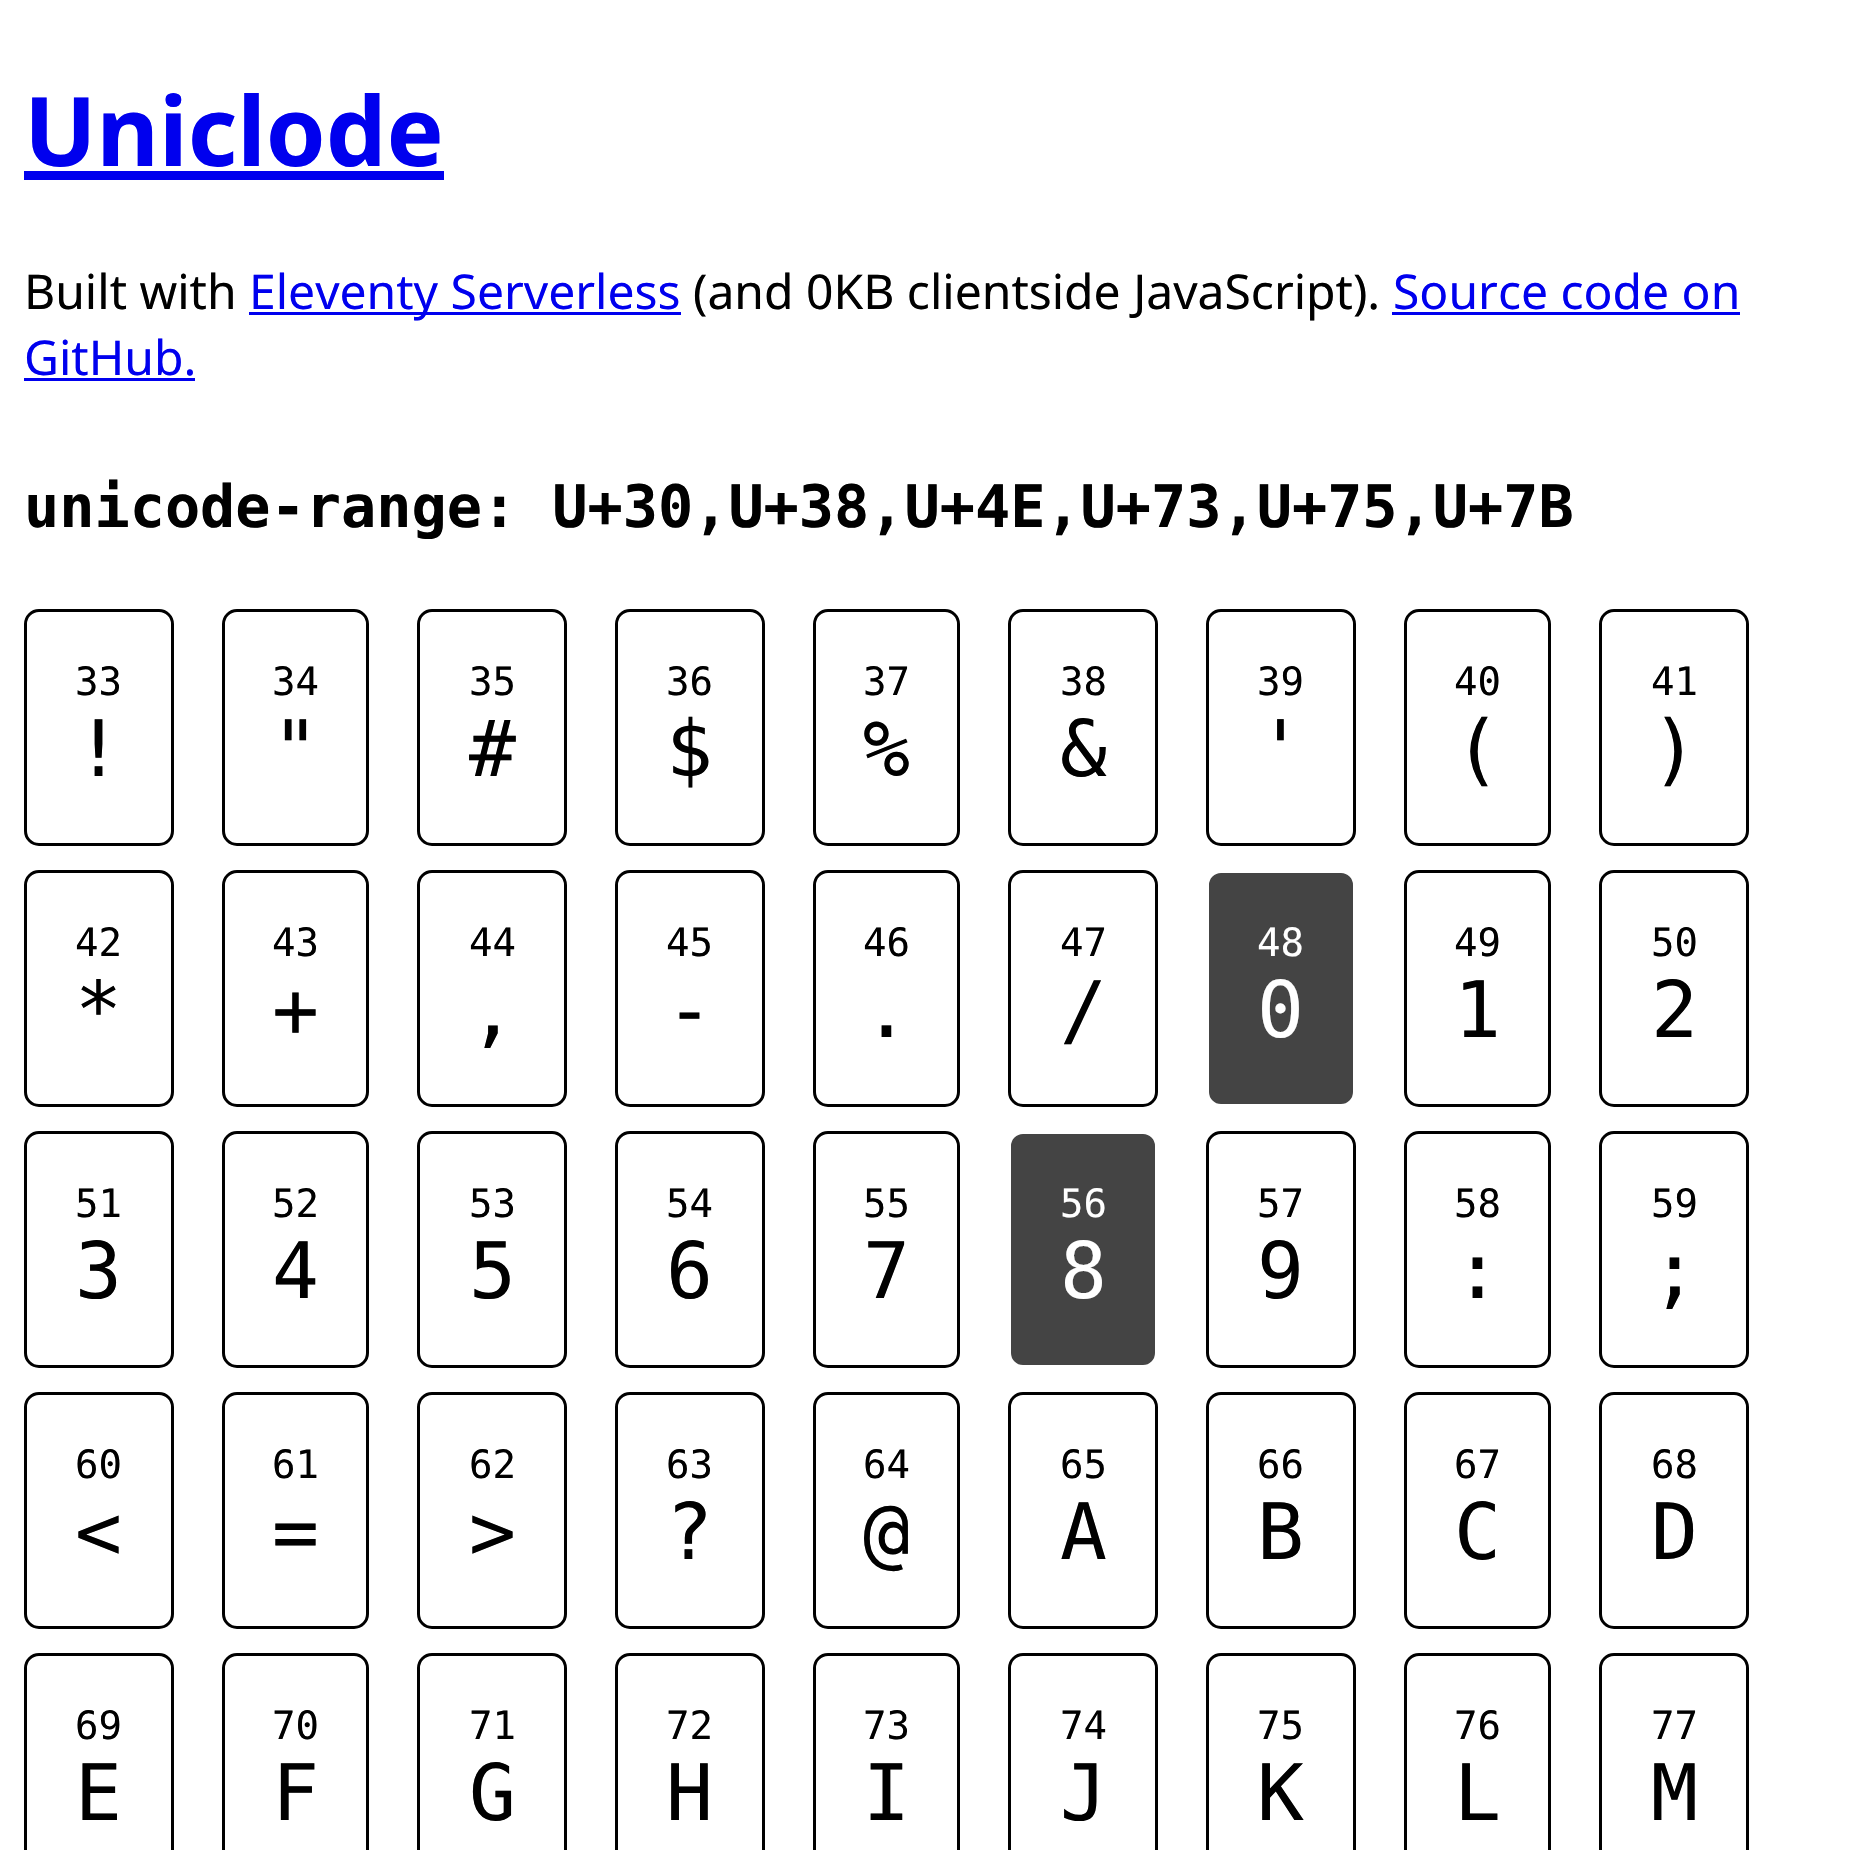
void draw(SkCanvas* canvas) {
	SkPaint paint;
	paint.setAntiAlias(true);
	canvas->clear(0xffffffff);
	SkFont f1(fontMgr->matchFamilyStyle("Noto Sans", SkFontStyle::Bold()), 96);
	f1.setSubpixel(true);
	paint.setColor(0xff0000ee);
	canvas->drawString("Uniclode", 24, 166, f1, paint);
	canvas->drawRect(SkRect::MakeXYWH(24, 171, 420, 9), paint);
	SkFont f2(fontMgr->matchFamilyStyle("Noto Sans", SkFontStyle::Normal()), 48);
	f2.setSubpixel(true);
	paint.setColor(0xff000000);
	canvas->drawString("Built with", 24, 309, f2, paint);
	paint.setColor(0xff0000ee);
	canvas->drawRect(SkRect::MakeXYWH(249, 312, 432, 3), paint);
	canvas->drawString("Eleventy Serverless", 249, 309, f2, paint);
	paint.setColor(0xff000000);
	canvas->drawString("(and 0KB clientside JavaScript).", 693, 309, f2, paint);
	paint.setColor(0xff0000ee);
	canvas->drawString("Source code on", 1393, 309, f2, paint);
	canvas->drawRect(SkRect::MakeXYWH(1392, 312, 348, 3), paint);
	canvas->drawString("GitHub.", 24, 375, f2, paint);
	canvas->drawRect(SkRect::MakeXYWH(24, 378, 171, 3), paint);
	SkFont f3(fontMgr->matchFamilyStyle("DejaVu Sans Mono", SkFontStyle::Bold()), 58.5);
	f3.setSubpixel(true);
	paint.setColor(0xff000000);
	canvas->drawString("unicode-range: U+30,U+38,U+4E,U+73,U+75,U+7B", 24, 527, f3, paint);
	paint.setStroke(true);
	paint.setStrokeWidth(3);
	canvas->drawRoundRect(SkRect::MakeXYWH(25.5, 610.5, 147, 234), 13.5, 13.5, paint);
	SkFont f4(fontMgr->matchFamilyStyle("DejaVu Sans Mono", SkFontStyle::Normal()), 39);
	f4.setSubpixel(true);
	paint.setStroke(false);
	canvas->drawString("33", 75, 695, f4, paint);
	SkFont f5(fontMgr->matchFamilyStyle("DejaVu Sans Mono", SkFontStyle::Normal()), 78);
	f5.setSubpixel(true);
	canvas->drawString("!", 75, 776, f5, paint);
	paint.setStroke(true);
	canvas->drawRoundRect(SkRect::MakeXYWH(223.5, 610.5, 144, 234), 13.5, 13.5, paint);
	paint.setStroke(false);
	canvas->drawString("34", 272, 695, f4, paint);
	canvas->drawString("\"", 272, 776, f5, paint);
	paint.setStroke(true);
	canvas->drawRoundRect(SkRect::MakeXYWH(418.5, 610.5, 147, 234), 13.5, 13.5, paint);
	paint.setStroke(false);
	canvas->drawString("35", 469, 695, f4, paint);
	canvas->drawString("#", 469, 776, f5, paint);
	paint.setStroke(true);
	canvas->drawRoundRect(SkRect::MakeXYWH(616.5, 610.5, 147, 234), 13.5, 13.5, paint);
	paint.setStroke(false);
	canvas->drawString("36", 666, 695, f4, paint);
	canvas->drawString("$", 666, 776, f5, paint);
	paint.setStroke(true);
	canvas->drawRoundRect(SkRect::MakeXYWH(814.5, 610.5, 144, 234), 13.5, 13.5, paint);
	paint.setStroke(false);
	canvas->drawString("37", 863, 695, f4, paint);
	canvas->drawString("%", 863, 776, f5, paint);
	paint.setStroke(true);
	canvas->drawRoundRect(SkRect::MakeXYWH(1009.5, 610.5, 147, 234), 13.5, 13.5, paint);
	paint.setStroke(false);
	canvas->drawString("38", 1060, 695, f4, paint);
	canvas->drawString("&", 1060, 776, f5, paint);
	paint.setStroke(true);
	canvas->drawRoundRect(SkRect::MakeXYWH(1207.5, 610.5, 147, 234), 13.5, 13.5, paint);
	paint.setStroke(false);
	canvas->drawString("39", 1257, 695, f4, paint);
	canvas->drawString("'", 1257, 776, f5, paint);
	paint.setStroke(true);
	canvas->drawRoundRect(SkRect::MakeXYWH(1405.5, 610.5, 144, 234), 13.5, 13.5, paint);
	paint.setStroke(false);
	canvas->drawString("40", 1454, 695, f4, paint);
	canvas->drawString("(", 1454, 776, f5, paint);
	paint.setStroke(true);
	canvas->drawRoundRect(SkRect::MakeXYWH(1600.5, 610.5, 147, 234), 13.5, 13.5, paint);
	paint.setStroke(false);
	canvas->drawString("41", 1651, 695, f4, paint);
	canvas->drawString(")", 1651, 776, f5, paint);
	paint.setStroke(true);
	canvas->drawRoundRect(SkRect::MakeXYWH(25.5, 871.5, 147, 234), 13.5, 13.5, paint);
	paint.setStroke(false);
	canvas->drawString("42", 75, 956, f4, paint);
	canvas->drawString("*", 75, 1037, f5, paint);
	paint.setStroke(true);
	canvas->drawRoundRect(SkRect::MakeXYWH(223.5, 871.5, 144, 234), 13.5, 13.5, paint);
	paint.setStroke(false);
	canvas->drawString("43", 272, 956, f4, paint);
	canvas->drawString("+", 272, 1037, f5, paint);
	paint.setStroke(true);
	canvas->drawRoundRect(SkRect::MakeXYWH(418.5, 871.5, 147, 234), 13.5, 13.5, paint);
	paint.setStroke(false);
	canvas->drawString("44", 469, 956, f4, paint);
	canvas->drawString(",", 469, 1037, f5, paint);
	paint.setStroke(true);
	canvas->drawRoundRect(SkRect::MakeXYWH(616.5, 871.5, 147, 234), 13.5, 13.5, paint);
	paint.setStroke(false);
	canvas->drawString("45", 666, 956, f4, paint);
	canvas->drawString("-", 666, 1037, f5, paint);
	paint.setStroke(true);
	canvas->drawRoundRect(SkRect::MakeXYWH(814.5, 871.5, 144, 234), 13.5, 13.5, paint);
	paint.setStroke(false);
	canvas->drawString("46", 863, 956, f4, paint);
	canvas->drawString(".", 863, 1037, f5, paint);
	paint.setStroke(true);
	canvas->drawRoundRect(SkRect::MakeXYWH(1009.5, 871.5, 147, 234), 13.5, 13.5, paint);
	paint.setStroke(false);
	canvas->drawString("47", 1060, 956, f4, paint);
	canvas->drawString("/", 1060, 1037, f5, paint);
	paint.setColor(0xff444444);
	canvas->drawRoundRect(SkRect::MakeXYWH(1207.5, 871.5, 147, 234), 13.5, 13.5, paint);
	paint.setStroke(true);
	paint.setColor(0xffffffff);
	canvas->drawRoundRect(SkRect::MakeXYWH(1207.5, 871.5, 147, 234), 13.5, 13.5, paint);
	paint.setStroke(false);
	canvas->drawString("48", 1257, 956, f4, paint);
	canvas->drawString("0", 1257, 1037, f5, paint);
	paint.setStroke(true);
	paint.setColor(0xff000000);
	canvas->drawRoundRect(SkRect::MakeXYWH(1405.5, 871.5, 144, 234), 13.5, 13.5, paint);
	paint.setStroke(false);
	canvas->drawString("49", 1454, 956, f4, paint);
	canvas->drawString("1", 1454, 1037, f5, paint);
	paint.setStroke(true);
	canvas->drawRoundRect(SkRect::MakeXYWH(1600.5, 871.5, 147, 234), 13.5, 13.5, paint);
	paint.setStroke(false);
	canvas->drawString("50", 1651, 956, f4, paint);
	canvas->drawString("2", 1651, 1037, f5, paint);
	paint.setStroke(true);
	canvas->drawRoundRect(SkRect::MakeXYWH(25.5, 1132.5, 147, 234), 13.5, 13.5, paint);
	paint.setStroke(false);
	canvas->drawString("51", 75, 1217, f4, paint);
	canvas->drawString("3", 75, 1298, f5, paint);
	paint.setStroke(true);
	canvas->drawRoundRect(SkRect::MakeXYWH(223.5, 1132.5, 144, 234), 13.5, 13.5, paint);
	paint.setStroke(false);
	canvas->drawString("52", 272, 1217, f4, paint);
	canvas->drawString("4", 272, 1298, f5, paint);
	paint.setStroke(true);
	canvas->drawRoundRect(SkRect::MakeXYWH(418.5, 1132.5, 147, 234), 13.5, 13.5, paint);
	paint.setStroke(false);
	canvas->drawString("53", 469, 1217, f4, paint);
	canvas->drawString("5", 469, 1298, f5, paint);
	paint.setStroke(true);
	canvas->drawRoundRect(SkRect::MakeXYWH(616.5, 1132.5, 147, 234), 13.5, 13.5, paint);
	paint.setStroke(false);
	canvas->drawString("54", 666, 1217, f4, paint);
	canvas->drawString("6", 666, 1298, f5, paint);
	paint.setStroke(true);
	canvas->drawRoundRect(SkRect::MakeXYWH(814.5, 1132.5, 144, 234), 13.5, 13.5, paint);
	paint.setStroke(false);
	canvas->drawString("55", 863, 1217, f4, paint);
	canvas->drawString("7", 863, 1298, f5, paint);
	paint.setColor(0xff444444);
	canvas->drawRoundRect(SkRect::MakeXYWH(1009.5, 1132.5, 147, 234), 13.5, 13.5, paint);
	paint.setStroke(true);
	paint.setColor(0xffffffff);
	canvas->drawRoundRect(SkRect::MakeXYWH(1009.5, 1132.5, 147, 234), 13.5, 13.5, paint);
	paint.setStroke(false);
	canvas->drawString("56", 1060, 1217, f4, paint);
	canvas->drawString("8", 1060, 1298, f5, paint);
	paint.setStroke(true);
	paint.setColor(0xff000000);
	canvas->drawRoundRect(SkRect::MakeXYWH(1207.5, 1132.5, 147, 234), 13.5, 13.5, paint);
	paint.setStroke(false);
	canvas->drawString("57", 1257, 1217, f4, paint);
	canvas->drawString("9", 1257, 1298, f5, paint);
	paint.setStroke(true);
	canvas->drawRoundRect(SkRect::MakeXYWH(1405.5, 1132.5, 144, 234), 13.5, 13.5, paint);
	paint.setStroke(false);
	canvas->drawString("58", 1454, 1217, f4, paint);
	canvas->drawString(":", 1454, 1298, f5, paint);
	paint.setStroke(true);
	canvas->drawRoundRect(SkRect::MakeXYWH(1600.5, 1132.5, 147, 234), 13.5, 13.5, paint);
	paint.setStroke(false);
	canvas->drawString("59", 1651, 1217, f4, paint);
	canvas->drawString(";", 1651, 1298, f5, paint);
	paint.setStroke(true);
	canvas->drawRoundRect(SkRect::MakeXYWH(25.5, 1393.5, 147, 234), 13.5, 13.5, paint);
	paint.setStroke(false);
	canvas->drawString("60", 75, 1478, f4, paint);
	canvas->drawString("<", 75, 1559, f5, paint);
	paint.setStroke(true);
	canvas->drawRoundRect(SkRect::MakeXYWH(223.5, 1393.5, 144, 234), 13.5, 13.5, paint);
	paint.setStroke(false);
	canvas->drawString("61", 272, 1478, f4, paint);
	canvas->drawString("=", 272, 1559, f5, paint);
	paint.setStroke(true);
	canvas->drawRoundRect(SkRect::MakeXYWH(418.5, 1393.5, 147, 234), 13.5, 13.5, paint);
	paint.setStroke(false);
	canvas->drawString("62", 469, 1478, f4, paint);
	canvas->drawString(">", 469, 1559, f5, paint);
	paint.setStroke(true);
	canvas->drawRoundRect(SkRect::MakeXYWH(616.5, 1393.5, 147, 234), 13.5, 13.5, paint);
	paint.setStroke(false);
	canvas->drawString("63", 666, 1478, f4, paint);
	canvas->drawString("?", 666, 1559, f5, paint);
	paint.setStroke(true);
	canvas->drawRoundRect(SkRect::MakeXYWH(814.5, 1393.5, 144, 234), 13.5, 13.5, paint);
	paint.setStroke(false);
	canvas->drawString("64", 863, 1478, f4, paint);
	canvas->drawString("@", 863, 1559, f5, paint);
	paint.setStroke(true);
	canvas->drawRoundRect(SkRect::MakeXYWH(1009.5, 1393.5, 147, 234), 13.5, 13.5, paint);
	paint.setStroke(false);
	canvas->drawString("65", 1060, 1478, f4, paint);
	canvas->drawString("A", 1060, 1559, f5, paint);
	paint.setStroke(true);
	canvas->drawRoundRect(SkRect::MakeXYWH(1207.5, 1393.5, 147, 234), 13.5, 13.5, paint);
	paint.setStroke(false);
	canvas->drawString("66", 1257, 1478, f4, paint);
	canvas->drawString("B", 1257, 1559, f5, paint);
	paint.setStroke(true);
	canvas->drawRoundRect(SkRect::MakeXYWH(1405.5, 1393.5, 144, 234), 13.5, 13.5, paint);
	paint.setStroke(false);
	canvas->drawString("67", 1454, 1478, f4, paint);
	canvas->drawString("C", 1454, 1559, f5, paint);
	paint.setStroke(true);
	canvas->drawRoundRect(SkRect::MakeXYWH(1600.5, 1393.5, 147, 234), 13.5, 13.5, paint);
	paint.setStroke(false);
	canvas->drawString("68", 1651, 1478, f4, paint);
	canvas->drawString("D", 1651, 1559, f5, paint);
	paint.setStroke(true);
	canvas->drawRoundRect(SkRect::MakeXYWH(25.5, 1654.5, 147, 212), 13.5, 13.5, paint);
	paint.setStroke(false);
	canvas->drawString("69", 75, 1739, f4, paint);
	canvas->drawString("E", 75, 1820, f5, paint);
	paint.setStroke(true);
	canvas->drawRoundRect(SkRect::MakeXYWH(223.5, 1654.5, 144, 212), 13.5, 13.5, paint);
	paint.setStroke(false);
	canvas->drawString("70", 272, 1739, f4, paint);
	canvas->drawString("F", 272, 1820, f5, paint);
	paint.setStroke(true);
	canvas->drawRoundRect(SkRect::MakeXYWH(418.5, 1654.5, 147, 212), 13.5, 13.5, paint);
	paint.setStroke(false);
	canvas->drawString("71", 469, 1739, f4, paint);
	canvas->drawString("G", 469, 1820, f5, paint);
	paint.setStroke(true);
	canvas->drawRoundRect(SkRect::MakeXYWH(616.5, 1654.5, 147, 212), 13.5, 13.5, paint);
	paint.setStroke(false);
	canvas->drawString("72", 666, 1739, f4, paint);
	canvas->drawString("H", 666, 1820, f5, paint);
	paint.setStroke(true);
	canvas->drawRoundRect(SkRect::MakeXYWH(814.5, 1654.5, 144, 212), 13.5, 13.5, paint);
	paint.setStroke(false);
	canvas->drawString("73", 863, 1739, f4, paint);
	canvas->drawString("I", 863, 1820, f5, paint);
	paint.setStroke(true);
	canvas->drawRoundRect(SkRect::MakeXYWH(1009.5, 1654.5, 147, 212), 13.5, 13.5, paint);
	paint.setStroke(false);
	canvas->drawString("74", 1060, 1739, f4, paint);
	canvas->drawString("J", 1060, 1820, f5, paint);
	paint.setStroke(true);
	canvas->drawRoundRect(SkRect::MakeXYWH(1207.5, 1654.5, 147, 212), 13.5, 13.5, paint);
	paint.setStroke(false);
	canvas->drawString("75", 1257, 1739, f4, paint);
	canvas->drawString("K", 1257, 1820, f5, paint);
	paint.setStroke(true);
	canvas->drawRoundRect(SkRect::MakeXYWH(1405.5, 1654.5, 144, 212), 13.5, 13.5, paint);
	paint.setStroke(false);
	canvas->drawString("76", 1454, 1739, f4, paint);
	canvas->drawString("L", 1454, 1820, f5, paint);
	paint.setStroke(true);
	canvas->drawRoundRect(SkRect::MakeXYWH(1600.5, 1654.5, 147, 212), 13.5, 13.5, paint);
	paint.setStroke(false);
	canvas->drawString("77", 1651, 1739, f4, paint);
	canvas->drawString("M", 1651, 1820, f5, paint);
}
